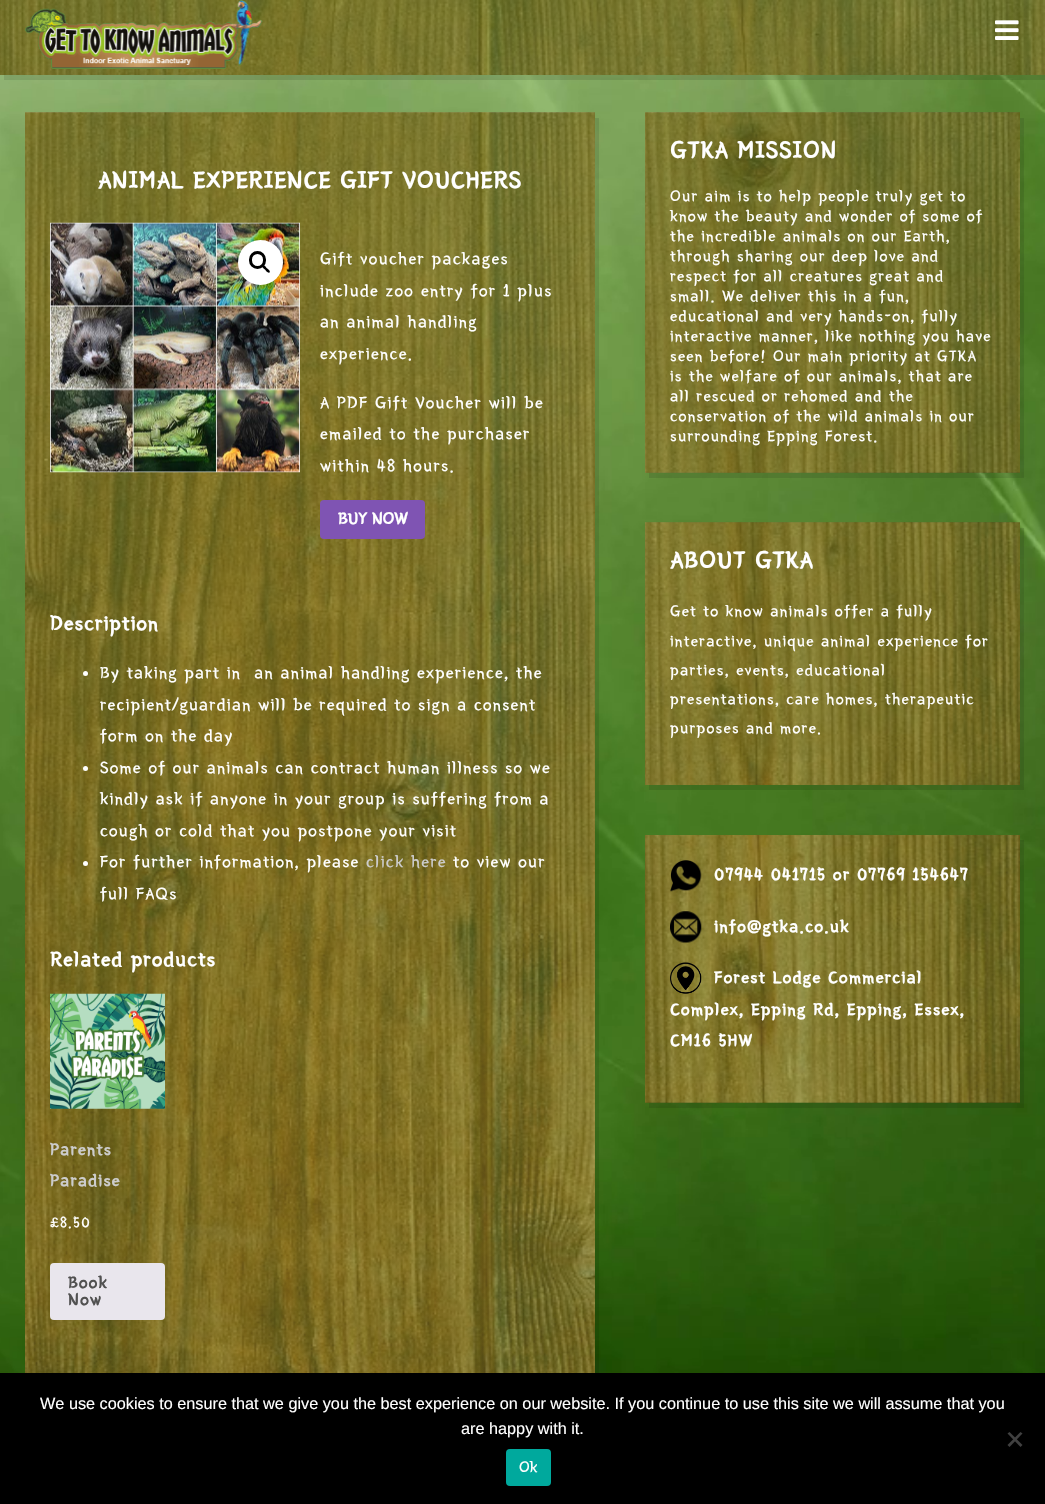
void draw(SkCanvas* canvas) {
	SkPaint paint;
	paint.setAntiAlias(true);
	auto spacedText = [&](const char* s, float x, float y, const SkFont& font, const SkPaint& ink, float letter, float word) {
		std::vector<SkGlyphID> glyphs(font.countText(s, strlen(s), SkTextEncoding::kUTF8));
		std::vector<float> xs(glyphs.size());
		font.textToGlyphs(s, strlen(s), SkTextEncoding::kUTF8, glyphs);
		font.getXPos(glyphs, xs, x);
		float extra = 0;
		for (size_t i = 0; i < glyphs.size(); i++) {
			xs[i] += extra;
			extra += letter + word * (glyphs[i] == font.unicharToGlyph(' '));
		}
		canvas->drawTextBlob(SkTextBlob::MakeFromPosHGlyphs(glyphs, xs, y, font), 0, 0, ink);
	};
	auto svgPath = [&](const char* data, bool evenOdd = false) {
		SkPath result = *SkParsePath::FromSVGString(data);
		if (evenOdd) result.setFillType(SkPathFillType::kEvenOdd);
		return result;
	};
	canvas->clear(0xffffffff);
	canvas->drawImageRect(SkImages::DeferredFromEncodedData(SkData::MakeFromFileName("img1.png")), SkRect::MakeXYWH(0, 75, 1045, 1298), SkSamplingOptions());
	paint.setColor(0x1a000000);
	canvas->drawPath(svgPath("M4 75V80H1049V5H1045V75Z"), paint);
	canvas->drawImageRect(SkImages::DeferredFromEncodedData(SkData::MakeFromFileName("img2.png")), SkRect::MakeXYWH(0, 0, 1045, 75), SkSamplingOptions());
	canvas->drawImageRect(SkImages::DeferredFromEncodedData(SkData::MakeFromFileName("img3.png")), SkRect::MakeXYWH(25, 0, 238, 69), SkSamplingOptions());
	canvas->drawImageRect(SkImages::DeferredFromEncodedData(SkData::MakeFromFileName("img4.png")), SkRect::MakeXYWH(995, 20, 24, 20), SkSamplingOptions());
	canvas->drawPath(svgPath("M29 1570V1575H599V118H595V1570Z"), paint);
	canvas->drawImageRect(SkImages::DeferredFromEncodedData(SkData::MakeFromFileName("img5.png")), SkRect::MakeXYWH(25, 112, 570, 1261), SkSamplingOptions());
	SkFont f1(fontMgr->matchFamilyStyle("Yeon Sung", SkFontStyle::Bold()), 25);
	f1.setSubpixel(true);
	paint.setColor(0xffffffff);
	spacedText("ANIMAL EXPERIENCE GIFT VOUCHERS", 98, 188, f1, paint, 1.3, 0);
	canvas->drawImageRect(SkImages::DeferredFromEncodedData(SkData::MakeFromFileName("img6.png")), SkRect::MakeXYWH(50, 222, 250, 251), SkSamplingOptions());
	canvas->drawCircle(260.5, 262.5, 22.5, paint);
	paint.setStroke(true);
	paint.setStrokeWidth(3);
	paint.setColor(0xff000000);
	canvas->drawRoundRect(SkRect::MakeXYWH(250.5, 252.5, 14, 15), 7, 7, paint);
	paint.setStroke(false);
	canvas->drawPath(svgPath("M262.5 265C263.5 264 266 267 266.5 268C267.5 268.5 271 271 269.5 272.5C268 273.5 265.5 270.5 265 269.5C264 269 261 266.5 262.5 265Z"), paint);
	SkFont f2(fontMgr->matchFamilyStyle("Yeon Sung", SkFontStyle::Normal()), 17.5);
	f2.setSubpixel(true);
	paint.setColor(0xffffffff);
	spacedText("Gift voucher packages", 320, 264, f2, paint, 1.4, 0);
	spacedText("include zoo entry for 1 plus", 320, 296, f2, paint, 1.4, 0);
	spacedText("an animal handling", 320, 327, f2, paint, 1.4, 0);
	spacedText("experience.", 320, 359, f2, paint, 1.4, 0);
	spacedText("A PDF Gift Voucher will be", 320, 408, f2, paint, 1.4, 0);
	spacedText("emailed to the purchaser", 320, 439, f2, paint, 1.4, 0);
	spacedText("within 48 hours.", 320, 471, f2, paint, 1.4, 0);
	paint.setColor(0xff7f54b3);
	canvas->drawRoundRect(SkRect::MakeXYWH(320, 500, 105, 39), 4, 4, paint);
	SkFont f3(fontMgr->matchFamilyStyle("Yeon Sung", SkFontStyle::Bold()), 17.5);
	f3.setSubpixel(true);
	paint.setColor(0xffffffff);
	canvas->drawString("BUY NOW", 338, 524, f3, paint);
	SkFont f4(fontMgr->matchFamilyStyle("Yeon Sung", SkFontStyle::Bold()), 21);
	f4.setSubpixel(true);
	spacedText("Description", 50, 630, f4, paint, 1.3, 0);
	canvas->drawCircle(85.5, 673.5, 2.5, paint);
	spacedText("By taking part in  an animal handling experience, the", 100, 678, f2, paint, 1.3, 0);
	spacedText("recipient/guardian will be required to sign a consent", 100, 710, f2, paint, 1.3, 0);
	spacedText("form on the day", 100, 741, f2, paint, 1.3, 0);
	canvas->drawCircle(85.5, 768.5, 2.5, paint);
	spacedText("Some of our animals can contract human illness so we", 100, 773, f2, paint, 1.3, 0);
	spacedText("kindly ask if anyone in your group is suffering from a", 100, 804, f2, paint, 1.3, 0);
	spacedText("cough or cold that you postpone your visit", 100, 836, f2, paint, 1.3, 0);
	canvas->drawCircle(85.5, 863.5, 2.5, paint);
	spacedText("For further information, please", 100, 867, f2, paint, 1.3, 0);
	paint.setColor(0xffcccccc);
	spacedText("click here", 366, 867, f2, paint, 1.3, 0);
	paint.setColor(0xffffffff);
	spacedText("to view our", 453, 867, f2, paint, 1.3, 0);
	spacedText("full FAQs", 100, 899, f2, paint, 1.3, 0);
	spacedText("Related products", 50, 966, f4, paint, 1.3, 0);
	canvas->drawImageRect(SkImages::DeferredFromEncodedData(SkData::MakeFromFileName("img7.png")), SkRect::MakeXYWH(50, 993, 115, 116), SkSamplingOptions());
	paint.setColor(0xffcccccc);
	spacedText("Parents", 50, 1155, f3, paint, 1.3, 0);
	spacedText("Paradise", 50, 1186, f3, paint, 1.3, 0);
	SkFont f5(fontMgr->matchFamilyStyle("Yeon Sung", SkFontStyle::Normal()), 15);
	f5.setSubpixel(true);
	paint.setColor(0xffffffff);
	spacedText("£8.50", 50, 1227, f5, paint, 1.3, 0);
	paint.setColor(0xffe9e6ed);
	canvas->drawRoundRect(SkRect::MakeXYWH(50, 1263, 115, 57), 4, 4, paint);
	paint.setColor(0xff515151);
	spacedText("Book", 68, 1288, f3, paint, 1.3, 0);
	spacedText("Now", 68, 1305, f3, paint, 1.3, 0);
	paint.setColor(0x1a000000);
	canvas->drawPath(svgPath("M649 472V478H1024V118H1020V472Z"), paint);
	canvas->drawImageRect(SkImages::DeferredFromEncodedData(SkData::MakeFromFileName("img8.png")), SkRect::MakeXYWH(645, 112, 375, 361), SkSamplingOptions());
	paint.setColor(0xffffffff);
	spacedText("GTKA MISSION", 670, 158, f1, paint, 1.3, 0);
	SkFont f6(fontMgr->matchFamilyStyle("Yeon Sung", SkFontStyle::Normal()), 16.25);
	f6.setSubpixel(true);
	spacedText("Our aim is to help people truly get to", 670, 201, f6, paint, 1.3, 0);
	spacedText("know the beauty and wonder of some of", 670, 221, f6, paint, 1.3, 0);
	spacedText("the incredible animals on our Earth,", 670, 241, f6, paint, 1.3, 0);
	spacedText("through sharing our deep love and", 670, 261, f6, paint, 1.3, 0);
	spacedText("respect for all creatures great and", 670, 281, f6, paint, 1.3, 0);
	spacedText("small. We deliver this in a fun,", 670, 301, f6, paint, 1.3, 0);
	spacedText("educational and very hands-on, fully", 670, 321, f6, paint, 1.3, 0);
	spacedText("interactive manner, like nothing you have", 670, 341, f6, paint, 1.3, 0);
	spacedText("seen before! Our main priority at GTKA", 670, 361, f6, paint, 1.3, 0);
	spacedText("is the welfare of our animals, that are", 670, 381, f6, paint, 1.3, 0);
	spacedText("all rescued or rehomed and the", 670, 401, f6, paint, 1.3, 0);
	spacedText("conservation of the wild animals in our", 670, 421, f6, paint, 1.3, 0);
	spacedText("surrounding Epping Forest.", 670, 441, f6, paint, 1.3, 0);
	paint.setColor(0x1a000000);
	canvas->drawPath(svgPath("M649 785V790H1024V528H1020V785Z"), paint);
	canvas->drawImageRect(SkImages::DeferredFromEncodedData(SkData::MakeFromFileName("img9.png")), SkRect::MakeXYWH(645, 522, 375, 263), SkSamplingOptions());
	paint.setColor(0xffffffff);
	spacedText("ABOUT GTKA", 670, 568, f1, paint, 1.3, 0);
	spacedText("Get to know animals offer a fully", 670, 616, f6, paint, 1.3, 0);
	spacedText("interactive, unique animal experience for", 670, 646, f6, paint, 1.3, 0);
	spacedText("parties, events, educational", 670, 675, f6, paint, 1.3, 0);
	spacedText("presentations, care homes, therapeutic", 670, 704, f6, paint, 1.3, 0);
	spacedText("purposes and more.", 670, 733, f6, paint, 1.3, 0);
	paint.setColor(0x1a000000);
	canvas->drawPath(svgPath("M649 1102V1108H1024V840H1020V1102Z"), paint);
	canvas->drawImageRect(SkImages::DeferredFromEncodedData(SkData::MakeFromFileName("img10.png")), SkRect::MakeXYWH(645, 835, 375, 268), SkSamplingOptions());
	canvas->drawImageRect(SkImages::DeferredFromEncodedData(SkData::MakeFromFileName("img11.png")), SkRect::MakeXYWH(670, 860, 32, 32), SkSamplingOptions());
	paint.setColor(0xffffffff);
	spacedText("07944 041715 or 07769 154647", 714, 880, f3, paint, 1.4, 0);
	canvas->drawImageRect(SkImages::DeferredFromEncodedData(SkData::MakeFromFileName("img12.png")), SkRect::MakeXYWH(670, 911, 32, 32), SkSamplingOptions());
	spacedText("info@gtka.co.uk", 714, 932, f3, paint, 1.4, 0);
	canvas->drawImageRect(SkImages::DeferredFromEncodedData(SkData::MakeFromFileName("img13.png")), SkRect::MakeXYWH(670, 962, 32, 32), SkSamplingOptions());
	spacedText("Forest Lodge Commercial", 714, 983, f3, paint, 1.4, 0);
	spacedText("Complex, Epping Rd, Epping, Essex,", 670, 1015, f3, paint, 1.4, 0);
	spacedText("CM16 5HW", 670, 1046, f3, paint, 1.4, 0);
	paint.setColor(0xff000000);
	canvas->drawRect(SkRect::MakeXYWH(0, 1373, 1045, 131), paint);
	SkFont f7(fontMgr->matchFamilyStyle("Liberation Sans", SkFontStyle::Normal()), 16.25);
	f7.setSubpixel(true);
	paint.setColor(0xffffffff);
	canvas->drawString("We use cookies to ensure that we give you the best experience on our website. If you continue to use this site we will assume that you", 40, 1409, f7, paint);
	canvas->drawString("are happy with it.", 461, 1434, f7, paint);
	paint.setColor(0xff404040);
	canvas->drawPath(svgPath("M1020.5 1432L1022.5 1433.5L1009.5 1447L1007.5 1445Z"), paint);
	canvas->drawPath(svgPath("M1007.5 1433.5L1009.5 1432L1022.5 1445L1020.5 1447Z"), paint);
	paint.setColor(0xff00a99d);
	canvas->drawRoundRect(SkRect::MakeXYWH(506, 1449, 45, 37), 4, 4, paint);
	paint.setColor(0xffffffff);
	canvas->drawString("Ok", 519, 1472, f6, paint);
}
